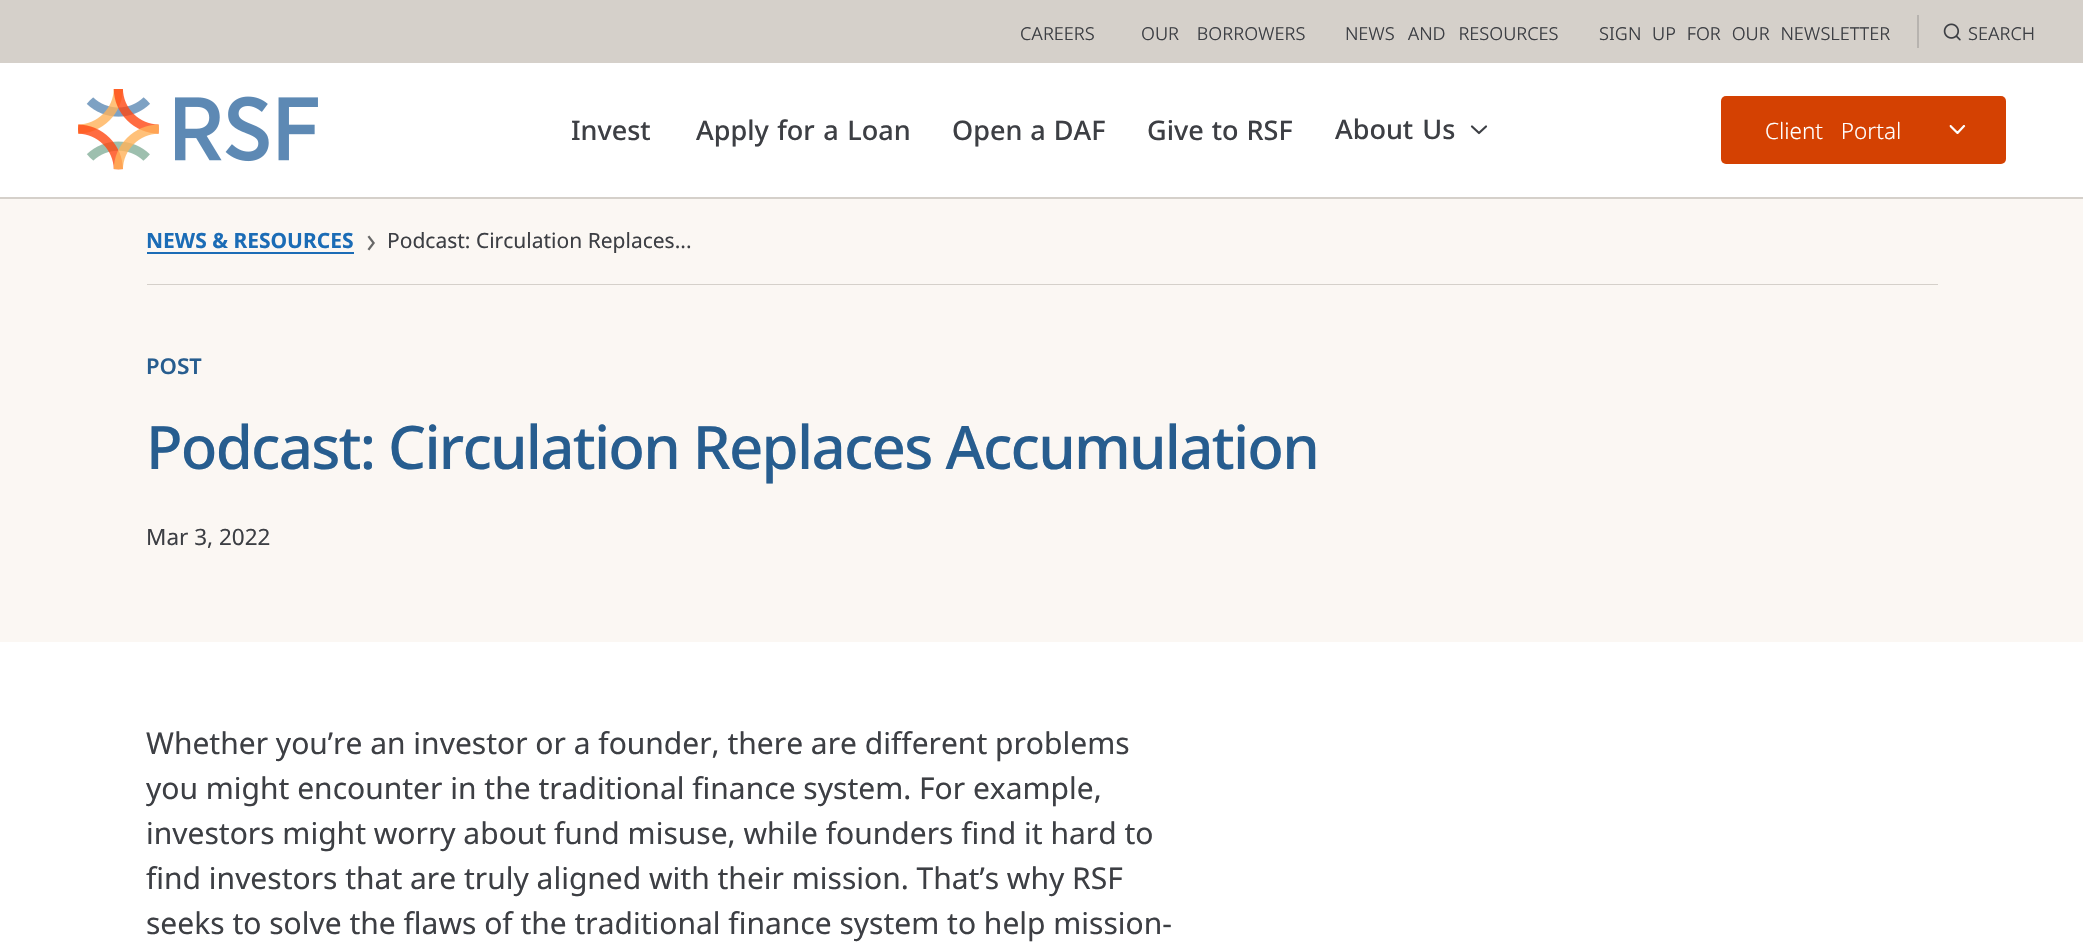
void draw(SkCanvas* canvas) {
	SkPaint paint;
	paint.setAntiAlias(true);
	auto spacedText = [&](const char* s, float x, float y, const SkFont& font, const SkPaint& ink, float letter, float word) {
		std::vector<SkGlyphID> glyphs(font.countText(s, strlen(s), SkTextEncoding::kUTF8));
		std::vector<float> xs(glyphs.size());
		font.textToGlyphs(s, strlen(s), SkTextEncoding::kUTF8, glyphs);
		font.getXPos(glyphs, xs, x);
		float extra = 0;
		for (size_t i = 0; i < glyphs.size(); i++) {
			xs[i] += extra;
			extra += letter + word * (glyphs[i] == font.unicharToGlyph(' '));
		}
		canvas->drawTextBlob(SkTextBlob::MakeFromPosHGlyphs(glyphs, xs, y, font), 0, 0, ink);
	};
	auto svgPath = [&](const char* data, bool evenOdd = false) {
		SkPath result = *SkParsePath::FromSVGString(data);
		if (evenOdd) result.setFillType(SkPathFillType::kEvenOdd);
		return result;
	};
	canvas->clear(0xffffffff);
	paint.setColor(0xffd5d0ca);
	canvas->drawRect(SkRect::MakeXYWH(0, 197, 2083, 2), paint);
	canvas->drawRect(SkRect::MakeXYWH(0, 0, 2083, 63), paint);
	SkFont f1(fontMgr->matchFamilyStyle("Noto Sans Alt", SkFontStyle(300, SkFontStyle::kNormal_Width, SkFontStyle::kUpright_Slant)), 22.5);
	f1.setSubpixel(true);
	paint.setColor(0xff3d3f44);
	canvas->drawString("Careers", 1020, 40, f1, paint);
	spacedText("Our Borrowers", 1141, 40, f1, paint, 0, 12);
	spacedText("News and Resources", 1345, 40, f1, paint, 0, 7);
	spacedText("Sign Up For Our Newsletter", 1599, 40, f1, paint, 0, 5);
	paint.setColor(0xffb7b3af);
	canvas->drawRect(SkRect::MakeXYWH(1917, 15, 2, 33), paint);
	canvas->drawImageRect(SkImages::DeferredFromEncodedData(SkData::MakeFromFileName("img1.png")), SkRect::MakeXYWH(1943, 23, 18, 18), SkSamplingOptions());
	paint.setColor(0xff3d3f44);
	canvas->drawString("Search", 1968, 40, f1, paint);
	canvas->drawImageRect(SkImages::DeferredFromEncodedData(SkData::MakeFromFileName("img2.png")), SkRect::MakeXYWH(78, 89, 240, 81), SkSamplingOptions());
	SkFont f2(fontMgr->matchFamilyStyle("Noto Sans", SkFontStyle(500, SkFontStyle::kNormal_Width, SkFontStyle::kUpright_Slant)), 27);
	f2.setSubpixel(true);
	canvas->drawString("Invest", 571, 140, f2, paint);
	spacedText("Apply for a Loan", 696, 140, f2, paint, 0, 1.5);
	spacedText("Open a DAF", 952, 140, f2, paint, 0, 1);
	spacedText("Give to RSF", 1147, 140, f2, paint, 0, 1);
	spacedText("About Us", 1335, 139, f2, paint, 0, 2);
	paint.setStroke(true);
	paint.setStrokeWidth(2.2);
	paint.setStrokeCap(SkPaint::kRound_Cap);
	paint.setStrokeJoin(SkPaint::kRound_Join);
	canvas->drawPath(svgPath("M1472 126.5L1479 133L1486 126.5"), paint);
	paint.setStroke(false);
	paint.setColor(0xffd44102);
	canvas->drawRoundRect(SkRect::MakeXYWH(1721, 96, 285, 68), 5, 5, paint);
	SkFont f3(fontMgr->matchFamilyStyle("Noto Sans", SkFontStyle(300, SkFontStyle::kNormal_Width, SkFontStyle::kUpright_Slant)), 22.5);
	f3.setSubpixel(true);
	paint.setColor(0xffffffff);
	spacedText("Client Portal", 1765, 139, f3, paint, 0, 12);
	canvas->save();
	canvas->clipPath(svgPath("M1966 125V134H1949.5V125Z"), true);
	paint.setStroke(true);
	canvas->drawPath(svgPath("M1950.5 126L1957.5 133L1964 126"), paint);
	canvas->restore();
	paint.setStroke(false);
	paint.setColor(0xfffbf7f3);
	canvas->drawRect(SkRect::MakeXYWH(0, 199, 2083, 443), paint);
	paint.setColor(0xffd5d0ca);
	canvas->drawRect(SkRect::MakeXYWH(147, 284, 1791, 1), paint);
	SkFont f4(fontMgr->matchFamilyStyle("Noto Sans", SkFontStyle::Bold()), 21);
	f4.setSubpixel(true);
	paint.setColor(0xff1b6cb6);
	canvas->drawString("NEWS & RESOURCES", 146, 248, f4, paint);
	canvas->drawRect(SkRect::MakeXYWH(147, 252, 207, 2), paint);
	canvas->drawImageRect(SkImages::DeferredFromEncodedData(SkData::MakeFromFileName("img3.png")), SkRect::MakeXYWH(367, 235, 8, 16), SkSamplingOptions());
	SkFont f5(fontMgr->matchFamilyStyle("Noto Sans", SkFontStyle::Normal()), 21);
	f5.setSubpixel(true);
	paint.setColor(0xff3d3f44);
	canvas->drawString("Podcast: Circulation Replaces...", 387, 248, f5, paint);
	SkFont f6(fontMgr->matchFamilyStyle("Noto Sans Alt", SkFontStyle(500, SkFontStyle::kNormal_Width, SkFontStyle::kUpright_Slant)), 27);
	f6.setSubpixel(true);
	paint.setColor(0xff275d8f);
	canvas->drawString("post", 146, 374, f6, paint);
	SkFont f7(fontMgr->matchFamilyStyle("Noto Sans", SkFontStyle(500, SkFontStyle::kNormal_Width, SkFontStyle::kUpright_Slant)), 60);
	f7.setSubpixel(true);
	spacedText("Podcast: Circulation Replaces Accumulation", 146, 469, f7, paint, -1.8, 0);
	SkFont f8(fontMgr->matchFamilyStyle("Noto Sans", SkFontStyle::Normal()), 22.5);
	f8.setSubpixel(true);
	paint.setColor(0xff3d3f44);
	canvas->drawString("Mar 3, 2022", 146, 545, f8, paint);
	SkFont f9(fontMgr->matchFamilyStyle("Noto Sans", SkFontStyle::Normal()), 30);
	f9.setSubpixel(true);
	canvas->drawString("Whether you’re an investor or a founder, there are different problems", 146, 754, f9, paint);
	canvas->drawString("you might encounter in the traditional finance system. For example,", 146, 799, f9, paint);
	canvas->drawString("investors might worry about fund misuse, while founders find it hard to", 146, 844, f9, paint);
	canvas->drawString("find investors that are truly aligned with their mission. That’s why RSF", 146, 889, f9, paint);
	canvas->drawString("seeks to solve the flaws of the traditional finance system to help mission-", 146, 934, f9, paint);
}
